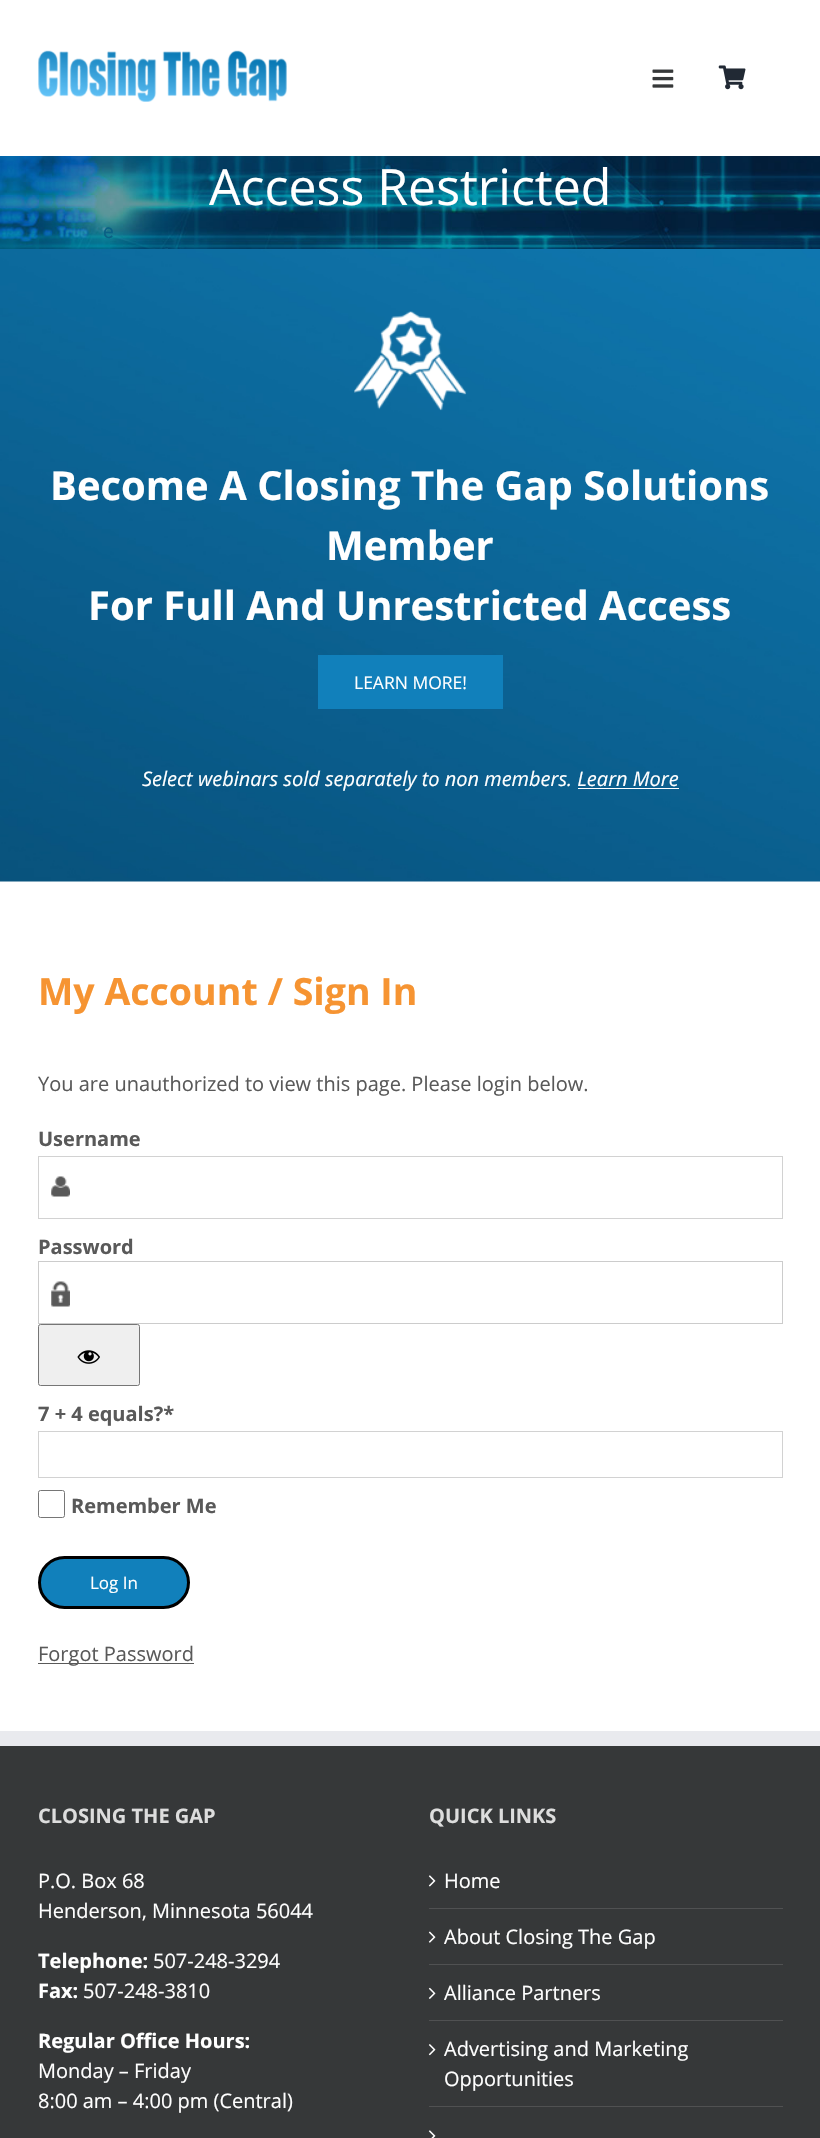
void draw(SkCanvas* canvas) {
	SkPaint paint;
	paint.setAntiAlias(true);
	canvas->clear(0xffffffff);
	canvas->drawImageRect(SkImages::DeferredFromEncodedData(SkData::MakeFromFileName("img1.png")), SkRect::MakeXYWH(0, 156, 820, 93), SkSamplingOptions());
	SkFont f1(fontMgr->matchFamilyStyle("Open Sans", SkFontStyle::Normal()), 50);
	f1.setSubpixel(true);
	paint.setColor(0xffffffff);
	canvas->drawString("Access Restricted", 209, 205, f1, paint);
	canvas->drawImageRect(SkImages::DeferredFromEncodedData(SkData::MakeFromFileName("img2.png")), SkRect::MakeXYWH(38, 50, 249, 52), SkSamplingOptions());
	canvas->drawImageRect(SkImages::DeferredFromEncodedData(SkData::MakeFromFileName("img3.png")), SkRect::MakeXYWH(718, 65, 28, 25), SkSamplingOptions());
	canvas->drawImageRect(SkImages::DeferredFromEncodedData(SkData::MakeFromFileName("img4.png")), SkRect::MakeXYWH(652, 69, 22, 19), SkSamplingOptions());
	SkFont f2(fontMgr->matchFamilyStyle("Roboto", SkFontStyle::Normal()), 20);
	f2.setSubpixel(true);
	paint.setColor(0xff0a6185);
	canvas->drawString("e", 103, 238, f2, paint);
	canvas->drawImageRect(SkImages::DeferredFromEncodedData(SkData::MakeFromFileName("img5.png")), SkRect::MakeXYWH(0, 249, 820, 633), SkSamplingOptions());
	canvas->drawImageRect(SkImages::DeferredFromEncodedData(SkData::MakeFromFileName("img6.png")), SkRect::MakeXYWH(354, 311, 113, 100), SkSamplingOptions());
	SkFont f3(fontMgr->matchFamilyStyle("Open Sans", SkFontStyle::Bold()), 40);
	f3.setSubpixel(true);
	paint.setColor(0xffffffff);
	canvas->drawString("Become A Closing The Gap Solutions", 50, 500, f3, paint);
	canvas->drawString("Member", 326, 560, f3, paint);
	canvas->drawString("For Full And Unrestricted Access", 88, 620, f3, paint);
	paint.setColor(0xff1180bb);
	canvas->drawRect(SkRect::MakeXYWH(318, 655, 185, 54), paint);
	SkFont f4(fontMgr->matchFamilyStyle("Open Sans", SkFontStyle::Normal()), 17.5);
	f4.setSubpixel(true);
	paint.setColor(0xffffffff);
	canvas->drawString("LEARN MORE!", 354, 689, f4, paint);
	SkFont f5(fontMgr->matchFamilyStyle("Open Sans", SkFontStyle::Italic()), 20);
	f5.setSubpixel(true);
	canvas->drawString("Select webinars sold separately to non members. Learn More", 142, 786, f5, paint);
	canvas->drawRect(SkRect::MakeXYWH(578, 788, 101, 1), paint);
	SkFont f6(fontMgr->matchFamilyStyle("Open Sans", SkFontStyle::Bold()), 37.5);
	f6.setSubpixel(true);
	paint.setColor(0xfff69432);
	canvas->drawString("My Account / Sign In", 38, 1005, f6, paint);
	SkFont f7(fontMgr->matchFamilyStyle("Open Sans", SkFontStyle::Normal()), 20);
	f7.setSubpixel(true);
	paint.setColor(0xff595959);
	canvas->drawString("You are unauthorized to view this page. Please login below.", 38, 1091, f7, paint);
	SkFont f8(fontMgr->matchFamilyStyle("Open Sans", SkFontStyle::Bold()), 20);
	f8.setSubpixel(true);
	canvas->drawString("Username", 38, 1146, f8, paint);
	canvas->drawImageRect(SkImages::DeferredFromEncodedData(SkData::MakeFromFileName("img7.png")), SkRect::MakeXYWH(51, 1176, 19, 21), SkSamplingOptions());
	paint.setStroke(true);
	paint.setStrokeWidth(1);
	paint.setColor(0xffd2d2d2);
	canvas->drawRect(SkRect::MakeXYWH(38.5, 1156.5, 744, 62), paint);
	paint.setStroke(false);
	paint.setColor(0xff595959);
	canvas->drawString("Password", 38, 1254, f8, paint);
	canvas->drawImageRect(SkImages::DeferredFromEncodedData(SkData::MakeFromFileName("img8.png")), SkRect::MakeXYWH(51, 1281, 19, 26), SkSamplingOptions());
	paint.setStroke(true);
	paint.setColor(0xffcccccc);
	canvas->drawRect(SkRect::MakeXYWH(38.5, 1261.5, 744, 62), paint);
	paint.setStroke(false);
	paint.setColor(0xffefefef);
	canvas->drawRoundRect(SkRect::MakeXYWH(38.5, 1324.5, 101, 61), 2, 2, paint);
	paint.setStroke(true);
	paint.setColor(0xff767676);
	canvas->drawRoundRect(SkRect::MakeXYWH(38.5, 1324.5, 101, 61), 2, 2, paint);
	canvas->drawImageRect(SkImages::DeferredFromEncodedData(SkData::MakeFromFileName("img9.png")), SkRect::MakeXYWH(77, 1350, 23, 14), SkSamplingOptions());
	paint.setStroke(false);
	paint.setColor(0xff595959);
	canvas->drawString("7 + 4 equals?*", 38, 1421, f8, paint);
	paint.setStroke(true);
	paint.setColor(0xffd2d2d2);
	canvas->drawRect(SkRect::MakeXYWH(38.5, 1431.5, 744, 46), paint);
	paint.setColor(0xff767676);
	canvas->drawRoundRect(SkRect::MakeXYWH(38.5, 1490.5, 26, 27), 2, 2, paint);
	paint.setStroke(false);
	paint.setColor(0xff595959);
	canvas->drawString("Remember Me", 71, 1513, f8, paint);
	paint.setColor(0xff1180bb);
	canvas->drawRoundRect(SkRect::MakeXYWH(39.5, 1557.5, 149, 50), 25, 25, paint);
	paint.setStroke(true);
	paint.setStrokeWidth(3);
	paint.setColor(0xff000000);
	canvas->drawRoundRect(SkRect::MakeXYWH(39.5, 1557.5, 149, 50), 25, 25, paint);
	SkFont f9(fontMgr->matchFamilyStyle("Open Sans", SkFontStyle::Normal()), 17);
	f9.setSubpixel(true);
	paint.setStroke(false);
	paint.setColor(0xffffffff);
	canvas->drawString("Log In", 90, 1589, f9, paint);
	paint.setColor(0xff595959);
	canvas->drawRect(SkRect::MakeXYWH(38, 1663, 156, 1), paint);
	canvas->drawString("Forgot Password", 38, 1661, f7, paint);
	paint.setColor(0xff363839);
	canvas->drawRect(SkRect::MakeXYWH(0, 1746, 820, 392), paint);
	paint.setColor(0xffe9eaee);
	canvas->drawRect(SkRect::MakeXYWH(0, 1731, 820, 15), paint);
	paint.setColor(0xffdddddd);
	canvas->drawString("CLOSING THE GAP", 38, 1823, f8, paint);
	paint.setColor(0xffffffff);
	canvas->drawString("P.O. Box 68", 38, 1888, f7, paint);
	canvas->drawString("Henderson, Minnesota 56044", 38, 1918, f7, paint);
	canvas->drawString("Telephone:", 38, 1968, f8, paint);
	canvas->drawString("507-248-3294", 153, 1968, f7, paint);
	canvas->drawString("Fax:", 38, 1998, f8, paint);
	canvas->drawString("507-248-3810", 83, 1998, f7, paint);
	canvas->drawString("Regular Office Hours:", 38, 2048, f8, paint);
	canvas->drawString("Monday – Friday", 38, 2078, f7, paint);
	canvas->drawString("8:00 am – 4:00 pm (Central)", 38, 2108, f7, paint);
	paint.setColor(0xffdddddd);
	canvas->drawString("QUICK LINKS", 429, 1823, f8, paint);
	paint.setColor(0xff505152);
	canvas->drawRect(SkRect::MakeXYWH(429, 1908, 354, 1), paint);
	canvas->drawImageRect(SkImages::DeferredFromEncodedData(SkData::MakeFromFileName("img10.png")), SkRect::MakeXYWH(428, 1875, 8, 12), SkSamplingOptions());
	paint.setColor(0xffffffff);
	canvas->drawString("Home", 444, 1888, f7, paint);
	paint.setColor(0xff505152);
	canvas->drawRect(SkRect::MakeXYWH(429, 1964, 354, 1), paint);
	canvas->drawImageRect(SkImages::DeferredFromEncodedData(SkData::MakeFromFileName("img11.png")), SkRect::MakeXYWH(428, 1931, 8, 12), SkSamplingOptions());
	paint.setColor(0xffffffff);
	canvas->drawString("About Closing The Gap", 444, 1944, f7, paint);
	paint.setColor(0xff505152);
	canvas->drawRect(SkRect::MakeXYWH(429, 2020, 354, 1), paint);
	canvas->drawImageRect(SkImages::DeferredFromEncodedData(SkData::MakeFromFileName("img12.png")), SkRect::MakeXYWH(428, 1987, 8, 12), SkSamplingOptions());
	paint.setColor(0xffffffff);
	canvas->drawString("Alliance Partners", 444, 2000, f7, paint);
	paint.setColor(0xff505152);
	canvas->drawRect(SkRect::MakeXYWH(429, 2106, 354, 1), paint);
	canvas->drawImageRect(SkImages::DeferredFromEncodedData(SkData::MakeFromFileName("img13.png")), SkRect::MakeXYWH(428, 2044, 8, 12), SkSamplingOptions());
	paint.setColor(0xffffffff);
	canvas->drawString("Advertising and Marketing", 444, 2056, f7, paint);
	canvas->drawString("Opportunities", 444, 2086, f7, paint);
	canvas->drawImageRect(SkImages::DeferredFromEncodedData(SkData::MakeFromFileName("img14.png")), SkRect::MakeXYWH(428, 2130, 8, 8), SkSamplingOptions());
}
